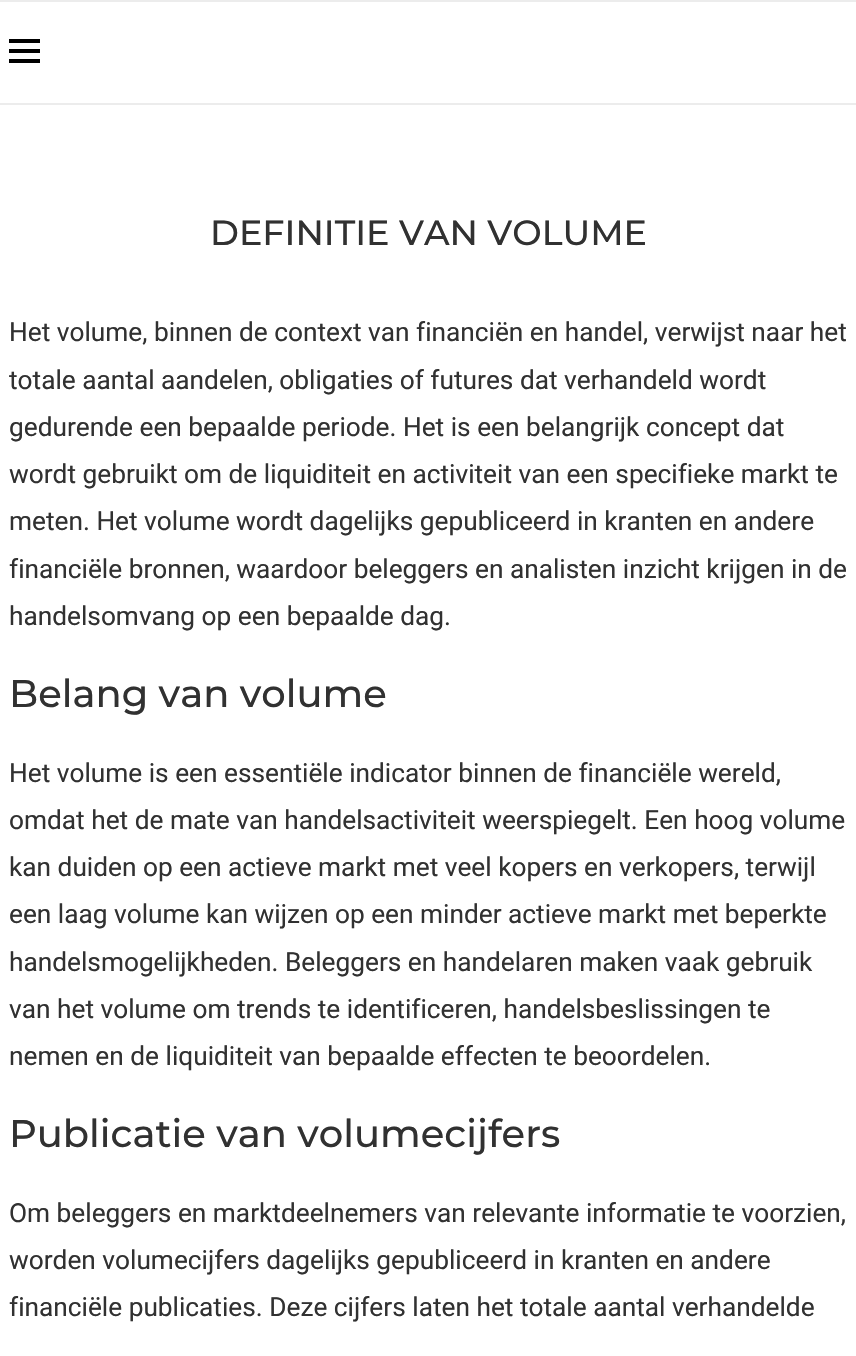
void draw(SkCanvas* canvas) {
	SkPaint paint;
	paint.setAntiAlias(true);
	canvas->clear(0xffffffff);
	paint.setColor(0xffececec);
	canvas->drawRect(SkRect::MakeXYWH(0, 0, 856, 2), paint);
	canvas->drawRect(SkRect::MakeXYWH(0, 103, 856, 2), paint);
	paint.setColor(0xff000000);
	canvas->drawRect(SkRect::MakeXYWH(9, 39, 31, 4), paint);
	canvas->drawRect(SkRect::MakeXYWH(9, 49, 31, 4), paint);
	canvas->drawRect(SkRect::MakeXYWH(9, 59, 31, 4), paint);
	SkFont f1(fontMgr->matchFamilyStyle("Montserrat", SkFontStyle(500, SkFontStyle::kNormal_Width, SkFontStyle::kUpright_Slant)), 35);
	f1.setSubpixel(true);
	paint.setColor(0xff313131);
	canvas->drawString("DEFINITIE VAN VOLUME", 210, 245, f1, paint);
	SkFont f2(fontMgr->matchFamilyStyle("Roboto", SkFontStyle::Normal()), 26.25);
	f2.setSubpixel(true);
	canvas->drawString("Het volume, binnen de context van financiën en handel, verwijst naar het", 9, 341, f2, paint);
	canvas->drawString("totale aantal aandelen, obligaties of futures dat verhandeld wordt", 9, 389, f2, paint);
	canvas->drawString("gedurende een bepaalde periode. Het is een belangrijk concept dat", 9, 436, f2, paint);
	canvas->drawString("wordt gebruikt om de liquiditeit en activiteit van een specifieke markt te", 9, 483, f2, paint);
	canvas->drawString("meten. Het volume wordt dagelijks gepubliceerd in kranten en andere", 9, 530, f2, paint);
	canvas->drawString("financiële bronnen, waardoor beleggers en analisten inzicht krijgen in de", 9, 578, f2, paint);
	canvas->drawString("handelsomvang op een bepaalde dag.", 9, 625, f2, paint);
	SkFont f3(fontMgr->matchFamilyStyle("Montserrat", SkFontStyle(500, SkFontStyle::kNormal_Width, SkFontStyle::kUpright_Slant)), 38.5);
	f3.setSubpixel(true);
	canvas->drawString("Belang van volume", 9, 707, f3, paint);
	canvas->drawString("Het volume is een essentiële indicator binnen de financiële wereld,", 9, 782, f2, paint);
	canvas->drawString("omdat het de mate van handelsactiviteit weerspiegelt. Een hoog volume", 9, 829, f2, paint);
	canvas->drawString("kan duiden op een actieve markt met veel kopers en verkopers, terwijl", 9, 876, f2, paint);
	canvas->drawString("een laag volume kan wijzen op een minder actieve markt met beperkte", 9, 923, f2, paint);
	canvas->drawString("handelsmogelijkheden. Beleggers en handelaren maken vaak gebruik", 9, 971, f2, paint);
	canvas->drawString("van het volume om trends te identificeren, handelsbeslissingen te", 9, 1018, f2, paint);
	canvas->drawString("nemen en de liquiditeit van bepaalde effecten te beoordelen.", 9, 1065, f2, paint);
	canvas->drawString("Publicatie van volumecijfers", 9, 1147, f3, paint);
	canvas->drawString("Om beleggers en marktdeelnemers van relevante informatie te voorzien,", 9, 1222, f2, paint);
	canvas->drawString("worden volumecijfers dagelijks gepubliceerd in kranten en andere", 9, 1269, f2, paint);
	canvas->drawString("financiële publicaties. Deze cijfers laten het totale aantal verhandelde", 9, 1316, f2, paint);
}
